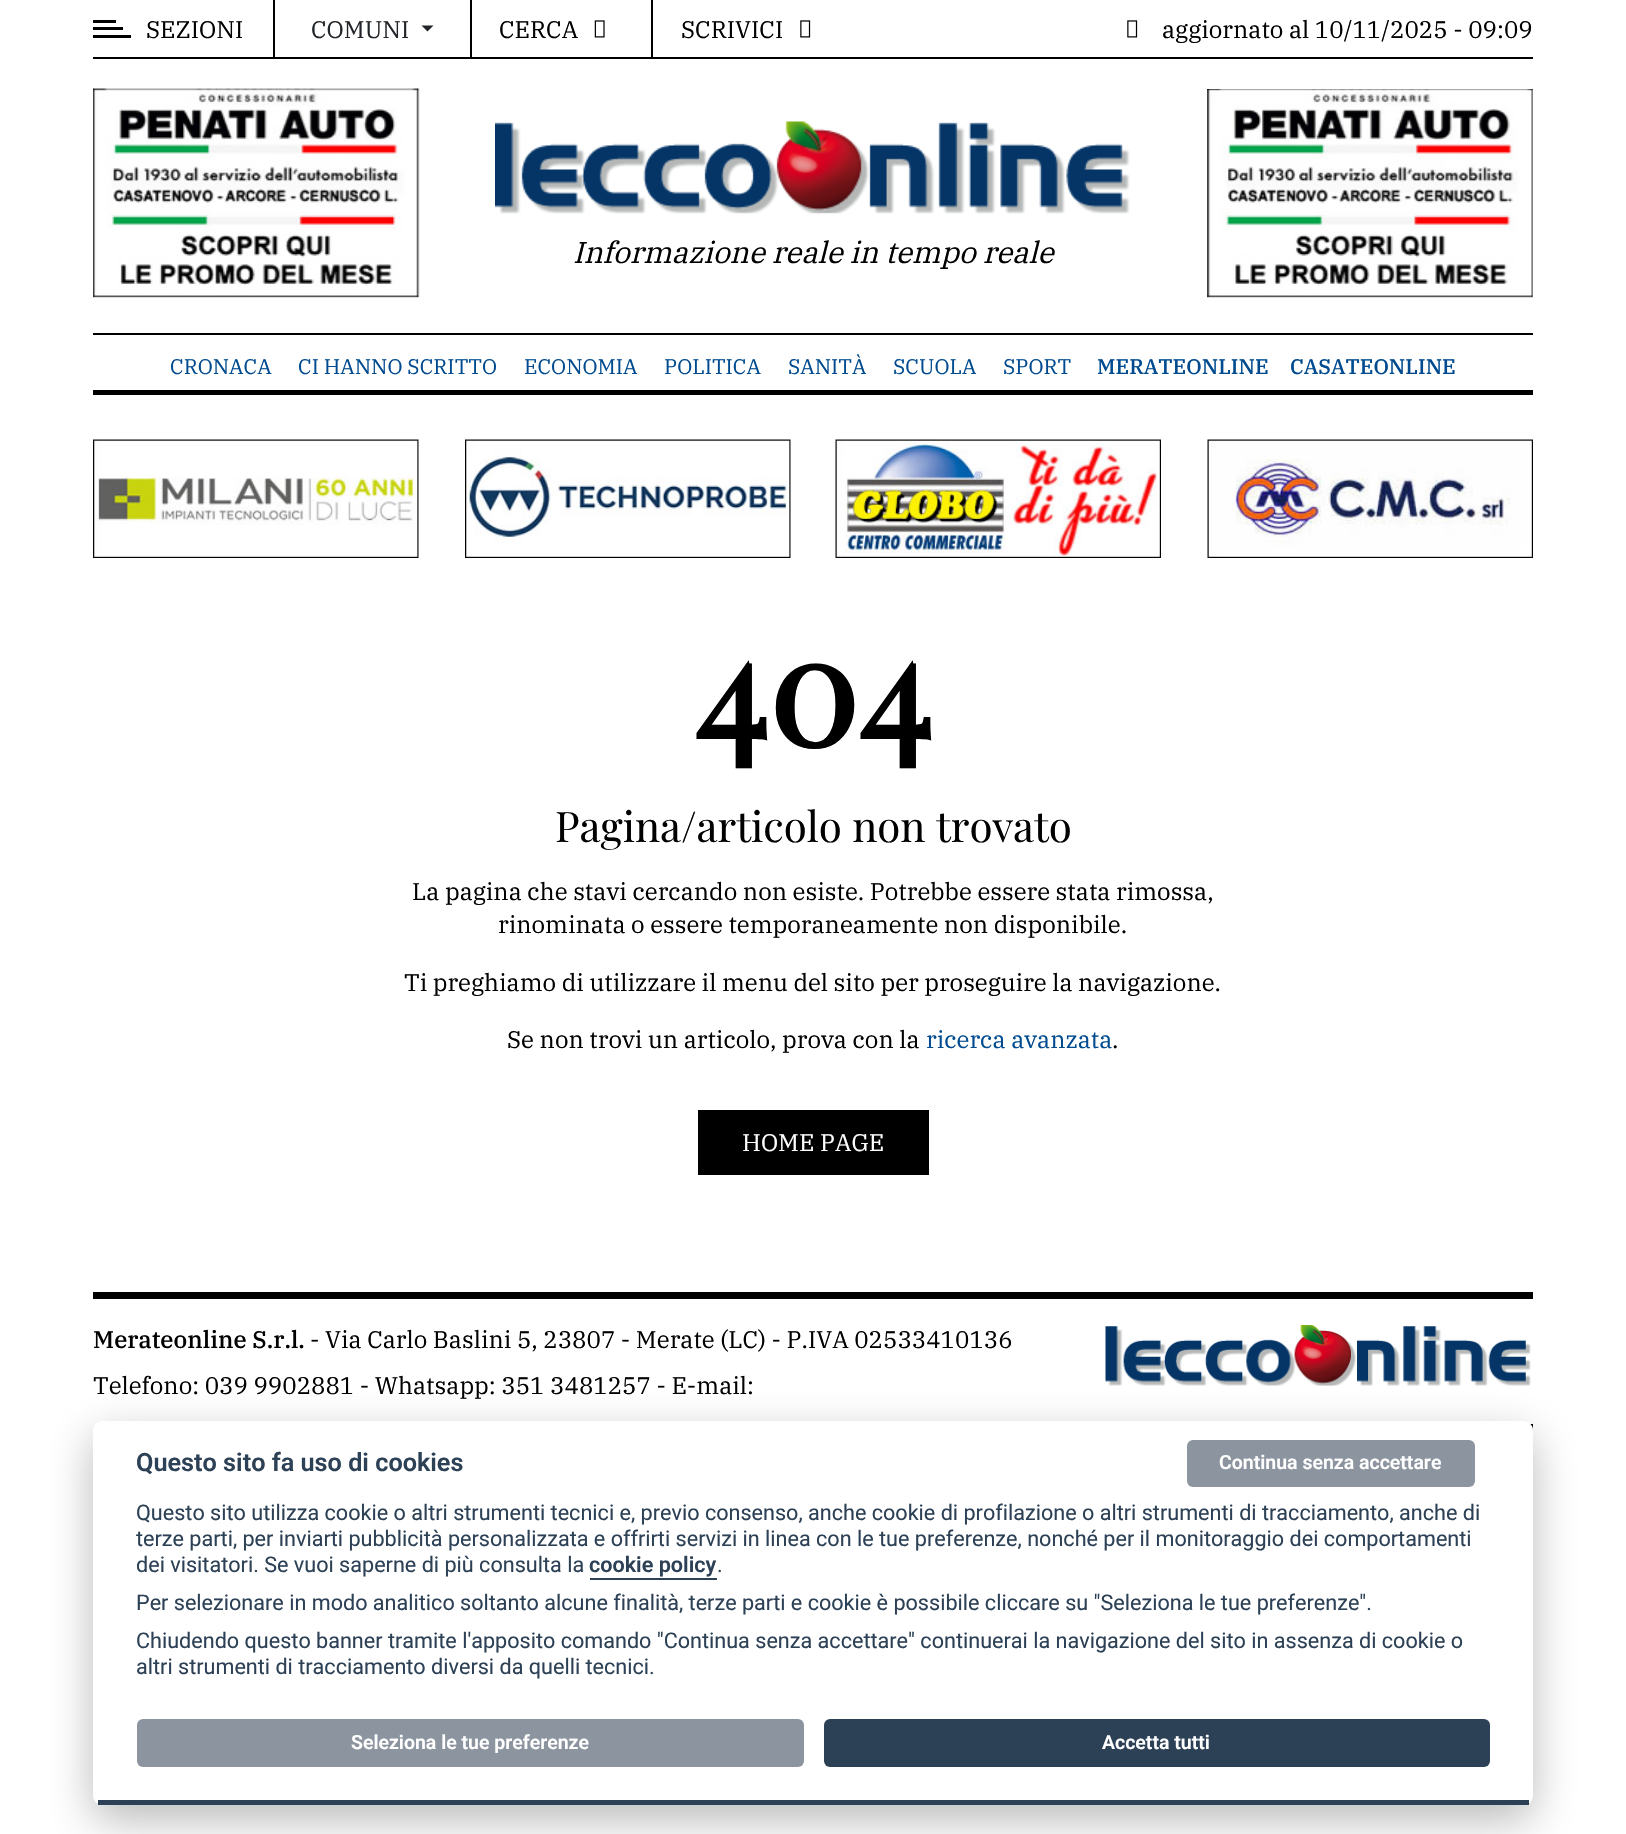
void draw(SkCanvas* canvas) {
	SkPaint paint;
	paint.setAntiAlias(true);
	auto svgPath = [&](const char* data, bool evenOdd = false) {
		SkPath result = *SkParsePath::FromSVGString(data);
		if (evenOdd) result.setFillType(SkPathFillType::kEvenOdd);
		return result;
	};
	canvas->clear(0xffffffff);
	paint.setColor(0xff000000);
	canvas->drawRect(SkRect::MakeXYWH(93, 57, 1440, 2), paint);
	canvas->drawRect(SkRect::MakeXYWH(273, 0, 2, 57), paint);
	canvas->drawRect(SkRect::MakeXYWH(93, 35, 38, 3), paint);
	canvas->drawRect(SkRect::MakeXYWH(93, 20, 23, 3), paint);
	canvas->drawRect(SkRect::MakeXYWH(93, 27, 30, 3), paint);
	SkFont f1(fontMgr->matchFamilyStyle("IBM Plex Serif", SkFontStyle::Normal()), 24);
	f1.setSubpixel(true);
	canvas->drawString("SEZIONI", 146, 38, f1, paint);
	canvas->drawRect(SkRect::MakeXYWH(470, 0, 2, 57), paint);
	paint.setColor(0xff212529);
	canvas->drawString("COMUNI", 311, 38, f1, paint);
	canvas->drawPath(svgPath("M421.5 25.5H433.5L427.5 31.5Z"), paint);
	paint.setColor(0xff000000);
	canvas->drawRect(SkRect::MakeXYWH(651, 0, 2, 57), paint);
	canvas->drawString("CERCA", 499, 38, f1, paint);
	canvas->drawImageRect(SkImages::DeferredFromEncodedData(SkData::MakeFromFileName("img1.png")), SkRect::MakeXYWH(594, 20, 11, 18), SkSamplingOptions());
	canvas->drawString("SCRIVICI", 681, 38, f1, paint);
	canvas->drawImageRect(SkImages::DeferredFromEncodedData(SkData::MakeFromFileName("img2.png")), SkRect::MakeXYWH(800, 20, 11, 18), SkSamplingOptions());
	canvas->drawImageRect(SkImages::DeferredFromEncodedData(SkData::MakeFromFileName("img2.png")), SkRect::MakeXYWH(1127, 20, 11, 18), SkSamplingOptions());
	canvas->drawString("aggiornato al 10/11/2025 - 09:09", 1162, 38, f1, paint);
	canvas->drawRect(SkRect::MakeXYWH(93, 333, 1440, 2), paint);
	canvas->drawImageRect(SkImages::DeferredFromEncodedData(SkData::MakeFromFileName("img3.png")), SkRect::MakeXYWH(93, 88, 327, 210), SkSamplingOptions());
	canvas->drawImageRect(SkImages::DeferredFromEncodedData(SkData::MakeFromFileName("img4.png")), SkRect::MakeXYWH(495, 121, 635, 93), SkSamplingOptions());
	SkFont f2(fontMgr->matchFamilyStyle("IBM Plex Serif", SkFontStyle::Italic()), 30);
	f2.setSubpixel(true);
	canvas->drawString("Informazione reale in tempo reale", 573, 263, f2, paint);
	canvas->drawImageRect(SkImages::DeferredFromEncodedData(SkData::MakeFromFileName("img5.png")), SkRect::MakeXYWH(1207, 89, 326, 209), SkSamplingOptions());
	canvas->drawRect(SkRect::MakeXYWH(93, 390, 1440, 5), paint);
	SkFont f3(fontMgr->matchFamilyStyle("IBM Plex Serif", SkFontStyle::Normal()), 21);
	f3.setSubpixel(true);
	paint.setColor(0xff004b8f);
	canvas->drawString("CRONACA", 170, 374, f3, paint);
	canvas->drawString("CI HANNO SCRITTO", 298, 374, f3, paint);
	canvas->drawString("ECONOMIA", 524, 374, f3, paint);
	canvas->drawString("POLITICA", 664, 374, f3, paint);
	canvas->drawString("SANITÀ", 788, 374, f3, paint);
	canvas->drawString("SCUOLA", 893, 374, f3, paint);
	canvas->drawString("SPORT", 1003, 374, f3, paint);
	SkFont f4(fontMgr->matchFamilyStyle("IBM Plex Serif", SkFontStyle(500, SkFontStyle::kNormal_Width, SkFontStyle::kUpright_Slant)), 21);
	f4.setSubpixel(true);
	canvas->drawString("MERATEONLINE", 1097, 374, f4, paint);
	canvas->drawString("CASATEONLINE", 1290, 374, f4, paint);
	canvas->drawImageRect(SkImages::DeferredFromEncodedData(SkData::MakeFromFileName("img6.png")), SkRect::MakeXYWH(93, 439, 326, 119), SkSamplingOptions());
	canvas->drawImageRect(SkImages::DeferredFromEncodedData(SkData::MakeFromFileName("img7.png")), SkRect::MakeXYWH(465, 439, 326, 119), SkSamplingOptions());
	canvas->drawImageRect(SkImages::DeferredFromEncodedData(SkData::MakeFromFileName("img8.png")), SkRect::MakeXYWH(835, 439, 326, 119), SkSamplingOptions());
	canvas->drawImageRect(SkImages::DeferredFromEncodedData(SkData::MakeFromFileName("img9.png")), SkRect::MakeXYWH(1207, 439, 326, 119), SkSamplingOptions());
	SkFont f5(fontMgr->matchFamilyStyle("Playfair Display", SkFontStyle::Bold()), 150);
	f5.setSubpixel(true);
	paint.setColor(0xff000000);
	canvas->drawString("404", 694, 747, f5, paint);
	SkFont f6(fontMgr->matchFamilyStyle("Playfair Display", SkFontStyle::Normal()), 42);
	f6.setSubpixel(true);
	canvas->drawString("Pagina/articolo non trovato", 555, 842, f6, paint);
	canvas->drawString("La pagina che stavi cercando non esiste. Potrebbe essere stata rimossa,", 412, 900, f1, paint);
	canvas->drawString("rinominata o essere temporaneamente non disponibile.", 498, 933, f1, paint);
	canvas->drawString("Ti preghiamo di utilizzare il menu del sito per proseguire la navigazione.", 404, 991, f1, paint);
	canvas->drawString("Se non trovi un articolo, prova con la", 507, 1048, f1, paint);
	paint.setColor(0xff004b8f);
	canvas->drawString("ricerca avanzata", 926, 1048, f1, paint);
	paint.setColor(0xff000000);
	canvas->drawString(".", 1112, 1048, f1, paint);
	canvas->drawRect(SkRect::MakeXYWH(698, 1110, 231, 65), paint);
	paint.setColor(0xffffffff);
	canvas->drawString("HOME PAGE", 742, 1151, f1, paint);
	paint.setColor(0xff000000);
	canvas->drawRect(SkRect::MakeXYWH(93, 1292, 1440, 7), paint);
	SkFont f7(fontMgr->matchFamilyStyle("IBM Plex Serif", SkFontStyle(500, SkFontStyle::kNormal_Width, SkFontStyle::kUpright_Slant)), 24);
	f7.setSubpixel(true);
	canvas->drawString("Merateonline S.r.l.", 93, 1348, f7, paint);
	canvas->drawString("- Via Carlo Baslini 5, 23807 - Merate (LC) - P.IVA 02533410136", 310, 1348, f1, paint);
	canvas->drawString("Telefono: 039 9902881 - Whatsapp: 351 3481257 - E-mail:", 93, 1394, f1, paint);
	canvas->drawImageRect(SkImages::DeferredFromEncodedData(SkData::MakeFromFileName("img10.png")), SkRect::MakeXYWH(1105, 1325, 426, 61), SkSamplingOptions());
	canvas->drawRect(SkRect::MakeXYWH(1530, 1424, 3, 6), paint);
	paint.setColor(0x47020203);
	paint.setMaskFilter(SkMaskFilter::MakeBlur(kNormal_SkBlurStyle, 22.5));
	canvas->drawRoundRect(SkRect::MakeXYWH(93, 1436, 1440, 384), 9, 9, paint);
	paint.setMaskFilter(nullptr);
	paint.setColor(0xffffffff);
	canvas->drawRoundRect(SkRect::MakeXYWH(93, 1421, 1440, 384), 9, 9, paint);
	paint.setColor(0xff2d4156);
	canvas->drawRect(SkRect::MakeXYWH(98, 1800, 1431, 5), paint);
	SkFont f8(fontMgr->matchFamilyStyle("Roboto", SkFontStyle(600, SkFontStyle::kNormal_Width, SkFontStyle::kUpright_Slant)), 25.25);
	f8.setSubpixel(true);
	canvas->drawString("Questo sito fa uso di cookies", 136, 1471, f8, paint);
	paint.setColor(0xff8c959f);
	canvas->drawRoundRect(SkRect::MakeXYWH(1187, 1440, 288, 47), 6, 6, paint);
	SkFont f9(fontMgr->matchFamilyStyle("Roboto", SkFontStyle(600, SkFontStyle::kNormal_Width, SkFontStyle::kUpright_Slant)), 19.5);
	f9.setSubpixel(true);
	paint.setColor(0xffffffff);
	canvas->drawString("Continua senza accettare", 1219, 1469, f9, paint);
	SkFont f10(fontMgr->matchFamilyStyle("Roboto", SkFontStyle::Normal()), 21.6);
	f10.setSubpixel(true);
	paint.setColor(0xff2d4156);
	canvas->drawString("Questo sito utilizza cookie o altri strumenti tecnici e, previo consenso, anche cookie di profilazione o altri strumenti di tracciamento, anche di", 136, 1520, f10, paint);
	canvas->drawString("terze parti, per inviarti pubblicità personalizzata e offrirti servizi in linea con le tue preferenze, nonché per il monitoraggio dei comportamenti", 136, 1546, f10, paint);
	canvas->drawString("dei visitatori. Se vuoi saperne di più consulta la", 136, 1572, f10, paint);
	SkFont f11(fontMgr->matchFamilyStyle("Roboto", SkFontStyle(600, SkFontStyle::kNormal_Width, SkFontStyle::kUpright_Slant)), 21.6);
	f11.setSubpixel(true);
	canvas->drawString("cookie policy", 589, 1572, f11, paint);
	canvas->drawRect(SkRect::MakeXYWH(590, 1578, 127, 2), paint);
	canvas->drawString(".", 717, 1572, f10, paint);
	canvas->drawString("Per selezionare in modo analitico soltanto alcune finalità, terze parti e cookie è possibile cliccare su \"Seleziona le tue preferenze\".", 136, 1610, f10, paint);
	canvas->drawString("Chiudendo questo banner tramite l'apposito comando \"Continua senza accettare\" continuerai la navigazione del sito in assenza di cookie o", 136, 1648, f10, paint);
	canvas->drawString("altri strumenti di tracciamento diversi da quelli tecnici.", 136, 1674, f10, paint);
	paint.setColor(0xff8c959f);
	canvas->drawRoundRect(SkRect::MakeXYWH(137, 1719, 667, 48), 6, 6, paint);
	paint.setColor(0xffffffff);
	canvas->drawString("Seleziona le tue preferenze", 351, 1749, f9, paint);
	paint.setColor(0xff2d4156);
	canvas->drawRoundRect(SkRect::MakeXYWH(824, 1719, 666, 48), 6, 6, paint);
	paint.setColor(0xffffffff);
	canvas->drawString("Accetta tutti", 1102, 1749, f9, paint);
}
